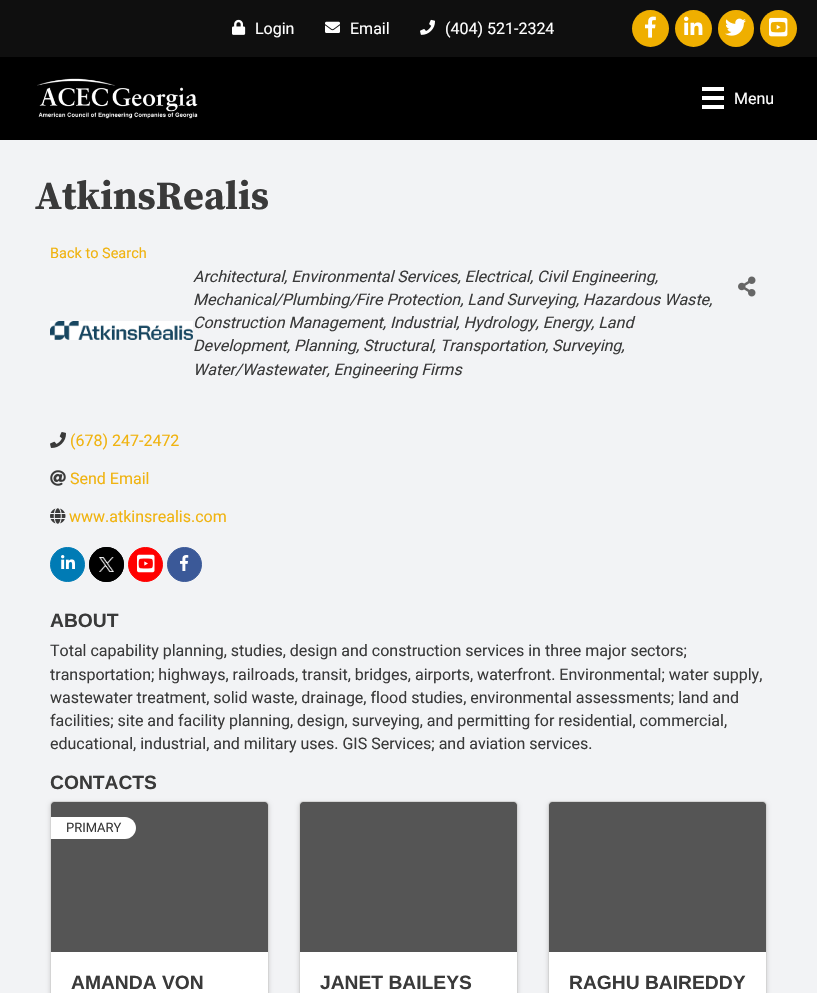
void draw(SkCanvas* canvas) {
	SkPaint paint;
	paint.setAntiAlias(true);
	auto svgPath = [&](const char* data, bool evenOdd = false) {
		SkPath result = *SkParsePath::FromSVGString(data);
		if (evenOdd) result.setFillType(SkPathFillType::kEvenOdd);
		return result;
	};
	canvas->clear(0xff000000);
	paint.setColor(0xff0f0f0f);
	canvas->drawRect(SkRect::MakeXYWH(0, 0, 817, 57), paint);
	canvas->drawImageRect(SkImages::DeferredFromEncodedData(SkData::MakeFromFileName("img1.png")), SkRect::MakeXYWH(232, 19, 14, 16), SkSamplingOptions());
	SkFont f1(fontMgr->matchFamilyStyle("Roboto", SkFontStyle::Normal()), 16);
	f1.setSubpixel(true);
	paint.setColor(0xffffffff);
	canvas->drawString("Login", 255, 34, f1, paint);
	canvas->drawImageRect(SkImages::DeferredFromEncodedData(SkData::MakeFromFileName("img2.png")), SkRect::MakeXYWH(325, 21, 15, 12), SkSamplingOptions());
	canvas->drawString("Email", 350, 34, f1, paint);
	canvas->drawImageRect(SkImages::DeferredFromEncodedData(SkData::MakeFromFileName("img3.png")), SkRect::MakeXYWH(420, 19, 15, 16), SkSamplingOptions());
	canvas->drawString("(404) 521-2324", 445, 34, f1, paint);
	paint.setColor(0xffefaf00);
	canvas->drawCircle(650.5, 28.5, 18.5, paint);
	canvas->drawImageRect(SkImages::DeferredFromEncodedData(SkData::MakeFromFileName("img4.png")), SkRect::MakeXYWH(645, 16, 11, 22), SkSamplingOptions());
	canvas->drawCircle(693.5, 28.5, 18.5, paint);
	canvas->drawImageRect(SkImages::DeferredFromEncodedData(SkData::MakeFromFileName("img5.png")), SkRect::MakeXYWH(684, 16, 19, 19), SkSamplingOptions());
	canvas->drawRoundRect(SkRect::MakeXYWH(718, 10, 36, 37), 18, 18, paint);
	canvas->drawImageRect(SkImages::DeferredFromEncodedData(SkData::MakeFromFileName("img6.png")), SkRect::MakeXYWH(725, 18, 21, 18), SkSamplingOptions());
	canvas->drawCircle(778.5, 28.5, 18.5, paint);
	canvas->drawImageRect(SkImages::DeferredFromEncodedData(SkData::MakeFromFileName("img7.png")), SkRect::MakeXYWH(769, 17, 19, 20), SkSamplingOptions());
	canvas->drawImageRect(SkImages::DeferredFromEncodedData(SkData::MakeFromFileName("img8.png")), SkRect::MakeXYWH(37, 78, 161, 41), SkSamplingOptions());
	paint.setColor(0xffffffff);
	canvas->drawRect(SkRect::MakeXYWH(702, 87, 22, 4), paint);
	canvas->drawRect(SkRect::MakeXYWH(702, 96, 22, 4), paint);
	canvas->drawRect(SkRect::MakeXYWH(702, 105, 22, 4), paint);
	canvas->drawString("Menu", 734, 104, f1, paint);
	paint.setColor(0xfff2f3f5);
	canvas->drawRect(SkRect::MakeXYWH(0, 140, 817, 853), paint);
	SkFont f2(fontMgr->matchFamilyStyle("Source Serif Pro", SkFontStyle::Bold()), 40);
	f2.setSubpixel(true);
	paint.setColor(0xff3a3a3a);
	canvas->drawString("AtkinsRealis", 35, 209, f2, paint);
	SkFont f3(fontMgr->matchFamilyStyle("Roboto", SkFontStyle::Normal()), 14.5);
	f3.setSubpixel(true);
	paint.setColor(0xfff0b310);
	canvas->drawString("Back to Search", 50, 258, f3, paint);
	SkFont f4(fontMgr->matchFamilyStyle("Roboto", SkFontStyle::Italic()), 16);
	f4.setSubpixel(true);
	paint.setColor(0xff3a3a3a);
	canvas->drawString("Architectural, Environmental Services, Electrical, Civil Engineering,", 193, 282, f4, paint);
	canvas->drawString("Mechanical/Plumbing/Fire Protection, Land Surveying, Hazardous Waste,", 193, 305, f4, paint);
	canvas->drawString("Construction Management, Industrial, Hydrology, Energy, Land", 193, 328, f4, paint);
	canvas->drawString("Development, Planning, Structural, Transportation, Surveying,", 193, 351, f4, paint);
	canvas->drawString("Water/Wastewater, Engineering Firms", 193, 375, f4, paint);
	canvas->drawImageRect(SkImages::DeferredFromEncodedData(SkData::MakeFromFileName("img9.png")), SkRect::MakeXYWH(738, 276, 18, 21), SkSamplingOptions());
	canvas->drawImageRect(SkImages::DeferredFromEncodedData(SkData::MakeFromFileName("img10.png")), SkRect::MakeXYWH(50, 321, 143, 19), SkSamplingOptions());
	canvas->drawImageRect(SkImages::DeferredFromEncodedData(SkData::MakeFromFileName("img11.png")), SkRect::MakeXYWH(50, 432, 16, 16), SkSamplingOptions());
	paint.setColor(0xfff0b310);
	canvas->drawString("(678) 247-2472", 70, 446, f1, paint);
	canvas->drawImageRect(SkImages::DeferredFromEncodedData(SkData::MakeFromFileName("img12.png")), SkRect::MakeXYWH(50, 470, 16, 16), SkSamplingOptions());
	canvas->drawString("Send Email", 70, 484, f1, paint);
	canvas->drawImageRect(SkImages::DeferredFromEncodedData(SkData::MakeFromFileName("img13.png")), SkRect::MakeXYWH(50, 508, 16, 16), SkSamplingOptions());
	canvas->drawString("www.atkinsrealis.com", 69, 522, f1, paint);
	paint.setColor(0xff007bb5);
	canvas->drawCircle(67.5, 564.5, 17, paint);
	paint.setStroke(true);
	paint.setStrokeWidth(1);
	canvas->drawCircle(67.5, 564.5, 17, paint);
	canvas->drawImageRect(SkImages::DeferredFromEncodedData(SkData::MakeFromFileName("img14.png")), SkRect::MakeXYWH(61, 555, 14, 14), SkSamplingOptions());
	paint.setStroke(false);
	paint.setColor(0xff000000);
	canvas->drawCircle(106.5, 564.5, 17.5, paint);
	canvas->drawImageRect(SkImages::DeferredFromEncodedData(SkData::MakeFromFileName("img15.png")), SkRect::MakeXYWH(99, 557, 15, 15), SkSamplingOptions());
	paint.setStroke(true);
	canvas->drawCircle(106.5, 564.5, 17, paint);
	paint.setStroke(false);
	paint.setColor(0xffff0000);
	canvas->drawCircle(145.5, 564.5, 17, paint);
	paint.setStroke(true);
	canvas->drawCircle(145.5, 564.5, 17, paint);
	canvas->drawImageRect(SkImages::DeferredFromEncodedData(SkData::MakeFromFileName("img16.png")), SkRect::MakeXYWH(137, 554, 18, 19), SkSamplingOptions());
	paint.setStroke(false);
	paint.setColor(0xff3b5998);
	canvas->drawCircle(184.5, 564.5, 17, paint);
	paint.setStroke(true);
	canvas->drawCircle(184.5, 564.5, 17, paint);
	canvas->drawImageRect(SkImages::DeferredFromEncodedData(SkData::MakeFromFileName("img17.png")), SkRect::MakeXYWH(180, 555, 9, 16), SkSamplingOptions());
	SkFont f5(fontMgr->matchFamilyStyle("Liberation Sans", SkFontStyle::Bold()), 19.25);
	f5.setSubpixel(true);
	paint.setStroke(false);
	paint.setColor(0xff3a3a3a);
	canvas->drawString("ABOUT", 50, 627, f5, paint);
	canvas->drawString("Total capability planning, studies, design and construction services in three major sectors;", 50, 656, f1, paint);
	canvas->drawString("transportation; highways, railroads, transit, bridges, airports, waterfront. Environmental; water supply,", 50, 680, f1, paint);
	canvas->drawString("wastewater treatment, solid waste, drainage, flood studies, environmental assessments; land and", 50, 703, f1, paint);
	canvas->drawString("facilities; site and facility planning, design, surveying, and permitting for residential, commercial,", 50, 726, f1, paint);
	canvas->drawString("educational, industrial, and military uses. GIS Services; and aviation services.", 50, 749, f1, paint);
	canvas->drawString("CONTACTS", 50, 789, f5, paint);
	paint.setColor(0x26000000);
	paint.setMaskFilter(SkMaskFilter::MakeBlur(kNormal_SkBlurStyle, 2));
	canvas->drawRoundRect(SkRect::MakeXYWH(50, 803, 219, 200), 4, 4, paint);
	paint.setMaskFilter(nullptr);
	paint.setColor(0xffffffff);
	canvas->drawRoundRect(SkRect::MakeXYWH(50.5, 801.5, 218, 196), 3.5, 3.5, paint);
	paint.setStroke(true);
	paint.setColor(0xffd4d4d4);
	canvas->drawRoundRect(SkRect::MakeXYWH(50.5, 801.5, 218, 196), 3.5, 3.5, paint);
	paint.setStroke(false);
	paint.setColor(0xff555555);
	canvas->drawPath(svgPath("M54 802H265C266.5 802 268 803.5 268 805V952H51V805C51 803.5 52.5 802 54 802Z"), paint);
	paint.setColor(0xffffffff);
	canvas->drawPath(svgPath("M51 817H125C131 817 136 822 136 828C136 834 131 839 125 839H51Z"), paint);
	SkFont f6(fontMgr->matchFamilyStyle("Roboto", SkFontStyle::Normal()), 13);
	f6.setSubpixel(true);
	paint.setColor(0xff3a3a3a);
	canvas->drawString("PRIMARY", 66, 832, f6, paint);
	canvas->drawString("AMANDA VON", 71, 989, f5, paint);
	paint.setColor(0x26000000);
	paint.setMaskFilter(SkMaskFilter::MakeBlur(kNormal_SkBlurStyle, 2));
	canvas->drawRoundRect(SkRect::MakeXYWH(299, 803, 219, 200), 4, 4, paint);
	paint.setMaskFilter(nullptr);
	paint.setColor(0xffffffff);
	canvas->drawRoundRect(SkRect::MakeXYWH(299.5, 801.5, 218, 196), 3.5, 3.5, paint);
	paint.setStroke(true);
	paint.setColor(0xffd4d4d4);
	canvas->drawRoundRect(SkRect::MakeXYWH(299.5, 801.5, 218, 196), 3.5, 3.5, paint);
	paint.setStroke(false);
	paint.setColor(0xff555555);
	canvas->drawPath(svgPath("M303 802H514C515.5 802 517 803.5 517 805V952H300V805C300 803.5 301.5 802 303 802Z"), paint);
	paint.setColor(0xff3a3a3a);
	canvas->drawString("JANET BAILEYS", 320, 989, f5, paint);
	paint.setColor(0x26000000);
	paint.setMaskFilter(SkMaskFilter::MakeBlur(kNormal_SkBlurStyle, 2));
	canvas->drawRoundRect(SkRect::MakeXYWH(548, 803, 219, 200), 4, 4, paint);
	paint.setMaskFilter(nullptr);
	paint.setColor(0xffffffff);
	canvas->drawRoundRect(SkRect::MakeXYWH(548.5, 801.5, 218, 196), 3.5, 3.5, paint);
	paint.setStroke(true);
	paint.setColor(0xffd4d4d4);
	canvas->drawRoundRect(SkRect::MakeXYWH(548.5, 801.5, 218, 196), 3.5, 3.5, paint);
	paint.setStroke(false);
	paint.setColor(0xff555555);
	canvas->drawPath(svgPath("M552 802H763C764.5 802 766 803.5 766 805V952H549V805C549 803.5 550.5 802 552 802Z"), paint);
	paint.setColor(0xff3a3a3a);
	canvas->drawString("RAGHU BAIREDDY", 569, 989, f5, paint);
}
